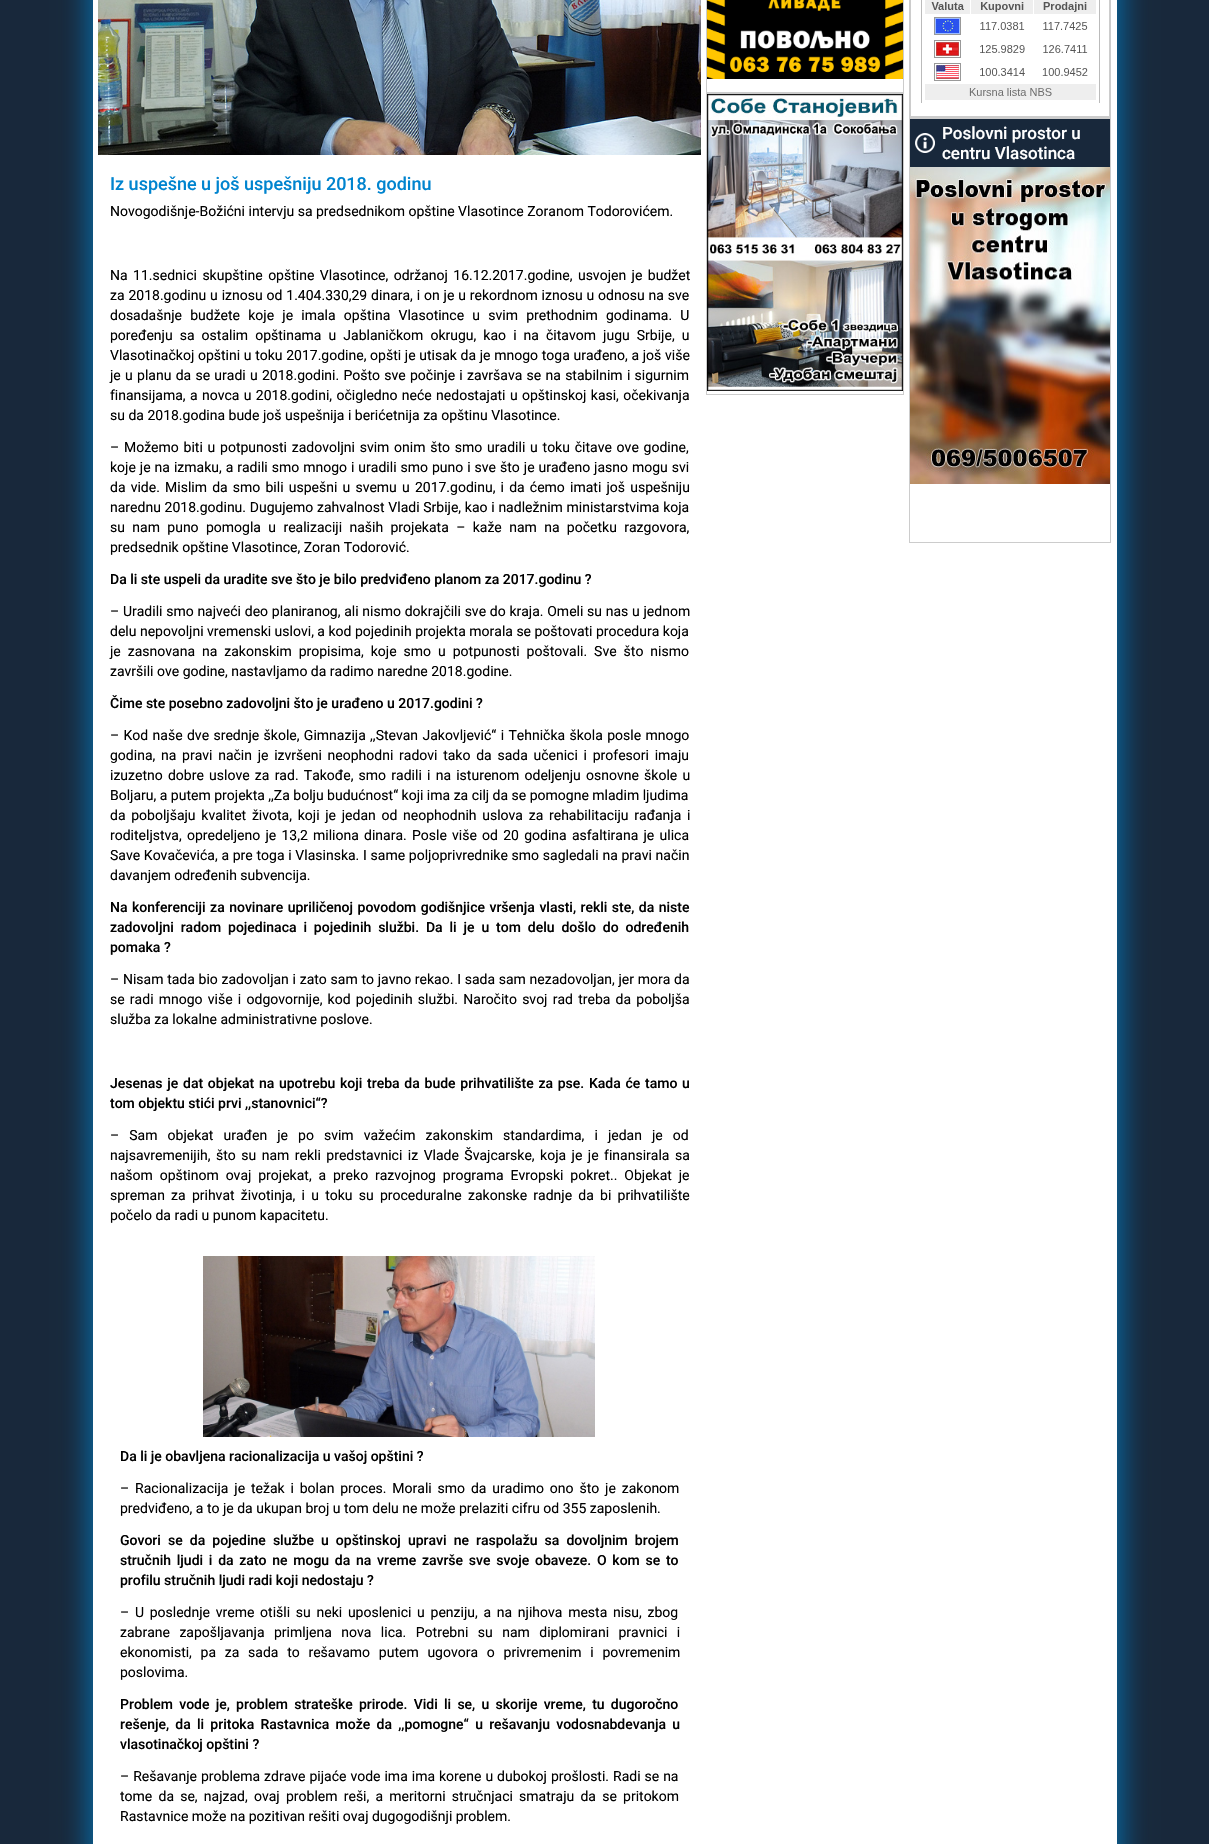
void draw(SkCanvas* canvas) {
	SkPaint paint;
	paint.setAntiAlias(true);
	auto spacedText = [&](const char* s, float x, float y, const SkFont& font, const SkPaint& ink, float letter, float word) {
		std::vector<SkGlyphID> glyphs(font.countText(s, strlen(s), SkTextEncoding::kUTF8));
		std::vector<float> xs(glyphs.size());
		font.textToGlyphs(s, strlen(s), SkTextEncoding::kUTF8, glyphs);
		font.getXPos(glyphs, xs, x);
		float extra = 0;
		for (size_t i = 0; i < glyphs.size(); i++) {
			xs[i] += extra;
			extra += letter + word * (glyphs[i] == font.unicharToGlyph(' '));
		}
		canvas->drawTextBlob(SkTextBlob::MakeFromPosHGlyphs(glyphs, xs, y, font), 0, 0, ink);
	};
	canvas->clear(0xff18283b);
	paint.setColor(0xb50084cf);
	paint.setMaskFilter(SkMaskFilter::MakeBlur(kNormal_SkBlurStyle, 13));
	canvas->drawRect(SkRect::MakeXYWH(88, -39, 1034, 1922), paint);
	paint.setMaskFilter(nullptr);
	paint.setColor(0xffffffff);
	canvas->drawRect(SkRect::MakeXYWH(93, 0, 1024, 1844), paint);
	paint.setStroke(true);
	paint.setStrokeWidth(1);
	paint.setColor(0xffcccccc);
	canvas->drawRect(SkRect::MakeXYWH(706.5, -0.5, 197, 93), paint);
	canvas->drawImageRect(SkImages::DeferredFromEncodedData(SkData::MakeFromFileName("img1.png")), SkRect::MakeXYWH(707, 0, 196, 79), SkSamplingOptions());
	canvas->drawRect(SkRect::MakeXYWH(706.5, 93.5, 197, 301), paint);
	canvas->drawImageRect(SkImages::DeferredFromEncodedData(SkData::MakeFromFileName("img2.png")), SkRect::MakeXYWH(707, 94, 196, 297), SkSamplingOptions());
	canvas->drawRect(SkRect::MakeXYWH(909.5, -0.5, 201, 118), paint);
	canvas->drawRect(SkRect::MakeXYWH(910.5, -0.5, 199, 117), paint);
	canvas->drawImageRect(SkImages::DeferredFromEncodedData(SkData::MakeFromFileName("img3.png")), SkRect::MakeXYWH(921, 0, 179, 103), SkSamplingOptions());
	canvas->drawRect(SkRect::MakeXYWH(909.5, 118.5, 201, 424), paint);
	paint.setStroke(false);
	paint.setColor(0xff18283b);
	canvas->drawRect(SkRect::MakeXYWH(910, 119, 200, 48), paint);
	canvas->drawImageRect(SkImages::DeferredFromEncodedData(SkData::MakeFromFileName("img4.png")), SkRect::MakeXYWH(915, 133, 20, 20), SkSamplingOptions());
	SkFont f1(fontMgr->matchFamilyStyle("Roboto", SkFontStyle(500, SkFontStyle::kNormal_Width, SkFontStyle::kUpright_Slant)), 17);
	f1.setSubpixel(true);
	paint.setColor(0xffffffff);
	canvas->drawString("Poslovni prostor u", 942, 139, f1, paint);
	canvas->drawString("centru Vlasotinca", 942, 159, f1, paint);
	canvas->drawImageRect(SkImages::DeferredFromEncodedData(SkData::MakeFromFileName("img5.png")), SkRect::MakeXYWH(910, 167, 200, 317), SkSamplingOptions());
	canvas->drawImageRect(SkImages::DeferredFromEncodedData(SkData::MakeFromFileName("img6.png")), SkRect::MakeXYWH(98, 0, 603, 155), SkSamplingOptions());
	SkFont f2(fontMgr->matchFamilyStyle("Roboto", SkFontStyle(500, SkFontStyle::kNormal_Width, SkFontStyle::kUpright_Slant)), 18);
	f2.setSubpixel(true);
	paint.setColor(0xff0084cf);
	canvas->drawString("Iz uspešne u još uspešniju 2018. godinu", 110, 190, f2, paint);
	SkFont f3(fontMgr->matchFamilyStyle("Roboto", SkFontStyle::Normal()), 14);
	f3.setSubpixel(true);
	paint.setColor(0xff000000);
	canvas->drawString("Novogodišnje-Božićni intervju sa predsednikom opštine Vlasotince Zoranom Todorovićem.", 110, 216, f3, paint);
	spacedText("Na 11.sednici skupštine opštine Vlasotince, održanoj 16.12.2017.godine, usvojen je budžet", 110, 280, f3, paint, 0, 2);
	spacedText("za 2018.godinu u iznosu od 1.404.330,29 dinara, i on je u rekordnom iznosu u odnosu na sve", 110, 300, f3, paint, 0, 0.4);
	spacedText("dosadašnje budžete koje je imala opština Vlasotince u svim prethodnim godinama. U", 110, 320, f3, paint, 0, 4.75);
	spacedText("poređenju sa ostalim opštinama u Jablaničkom okrugu, kao i na čitavom jugu Srbije, u", 110, 340, f3, paint, 0, 3.6);
	spacedText("Vlasotinačkoj opštini u toku 2017.godine, opšti je utisak da je mnogo toga urađeno, a još više", 110, 360, f3, paint, 0, 0.2);
	spacedText("je u planu da se uradi u 2018.godini. Pošto sve počinje i završava se na stabilnim i sigurnim", 110, 380, f3, paint, 0, 0.8);
	spacedText("finansijama, a novca u 2018.godini, očigledno neće nedostajati u opštinskoj kasi, očekivanja", 110, 400, f3, paint, 0, 0.9);
	canvas->drawString("su da 2018.godina bude još uspešnija i berićetnija za opštinu Vlasotince.", 110, 420, f3, paint);
	spacedText("– Možemo biti u potpunosti zadovoljni svim onim što smo uradili u toku čitave ove godine,", 110, 452, f3, paint, 0, 1.3);
	spacedText("koje je na izmaku, a radili smo mnogo i uradili smo puno i sve što je urađeno jasno mogu svi", 110, 472, f3, paint, 0, 0.5);
	spacedText("da vide. Mislim da smo bili uspešni u svemu u 2017.godinu, i da ćemo imati još uspešniju", 110, 492, f3, paint, 0, 1.7);
	spacedText("narednu 2018.godinu. Dugujemo zahvalnost Vladi Srbije, kao i nadležnim ministarstvima koja", 110, 512, f3, paint, 0, 0.25);
	spacedText("su nam puno pomogla u realizaciji naših projekata – kaže nam na početku razgovora,", 110, 532, f3, paint, 0, 3.9);
	canvas->drawString("predsednik opštine Vlasotince, Zoran Todorović.", 110, 552, f3, paint);
	SkFont f4(fontMgr->matchFamilyStyle("Roboto", SkFontStyle(500, SkFontStyle::kNormal_Width, SkFontStyle::kUpright_Slant)), 14);
	f4.setSubpixel(true);
	canvas->drawString("Da li ste uspeli da uradite sve što je bilo predviđeno planom za 2017.godinu ?", 110, 584, f4, paint);
	spacedText("– Uradili smo najveći deo planiranog, ali nismo dokrajčili sve do kraja. Omeli su nas u jednom", 110, 616, f3, paint, 0, 0.25);
	canvas->drawString("delu nepovoljni vremenski uslovi, a kod pojedinih projekta morala se poštovati procedura koja", 110, 636, f3, paint);
	spacedText("je zasnovana na zakonskim propisima, koje smo u potpunosti poštovali. Sve što nismo", 110, 656, f3, paint, 0, 3.5);
	canvas->drawString("završili ove godine, nastavljamo da radimo naredne 2018.godine.", 110, 676, f3, paint);
	canvas->drawString("Čime ste posebno zadovoljni što je urađeno u 2017.godini ?", 110, 708, f4, paint);
	spacedText("– Kod naše dve srednje škole, Gimnazija ,,Stevan Jakovljević“ i Tehnička škola posle mnogo", 110, 740, f3, paint, 0, 0.9);
	spacedText("godina, na pravi način je izvršeni neophodni radovi tako da sada učenici i profesori imaju", 110, 760, f3, paint, 0, 2.25);
	spacedText("izuzetno dobre uslove za rad. Takođe, smo radili i na isturenom odeljenju osnovne škole u", 110, 780, f3, paint, 0, 1.75);
	canvas->drawString("Boljaru, a putem projekta ,,Za bolju budućnost“ koji ima za cilj da se pomogne mladim ljudima", 110, 800, f3, paint);
	spacedText("da poboljšaju kvalitet života, koji je jedan od neophodnih uslova za rehabilitaciju rađanja i", 110, 820, f3, paint, 0, 2.25);
	spacedText("roditeljstva, opredeljeno je 13,2 miliona dinara. Posle više od 20 godina asfaltirana je ulica", 110, 840, f3, paint, 0, 1.75);
	spacedText("Save Kovačevića, a pre toga i Vlasinska. I same poljoprivrednike smo sagledali na pravi način", 110, 860, f3, paint, 0, 0.25);
	canvas->drawString("davanjem određenih subvencija.", 110, 880, f3, paint);
	spacedText("Na konferenciji za novinare upriličenoj povodom godišnjice vršenja vlasti, rekli ste, da niste", 110, 912, f4, paint, 0, 1);
	spacedText("zadovoljni radom pojedinaca i pojedinih službi. Da li je u tom delu došlo do određenih", 110, 932, f4, paint, 0, 3.4);
	canvas->drawString("pomaka ?", 110, 952, f4, paint);
	spacedText("– Nisam tada bio zadovoljan i zato sam to javno rekao. I sada sam nezadovoljan, jer mora da", 110, 984, f3, paint, 0, 0.25);
	spacedText("se radi mnogo više i odgovornije, kod pojedinih službi. Naročito svoj rad treba da poboljša", 110, 1004, f3, paint, 0, 1.75);
	canvas->drawString("služba za lokalne administrativne poslove.", 110, 1024, f3, paint);
	spacedText("Jesenas je dat objekat na upotrebu koji treba da bude prihvatilište za pse. Kada će tamo u", 110, 1088, f4, paint, 0, 1.25);
	canvas->drawString("tom objektu stići prvi ,,stanovnici“?", 110, 1108, f4, paint);
	spacedText("– Sam objekat urađen je po svim važećim zakonskim standardima, i jedan je od", 110, 1140, f3, paint, 0, 6.6);
	spacedText("najsavremenijih, što su nam rekli predstavnici iz Vlade Švajcarske, koja je je finansirala sa", 110, 1160, f3, paint, 0, 2);
	spacedText("našom opštinom ovaj projekat, a preko razvojnog programa Evropski pokret.. Objekat je", 110, 1180, f3, paint, 0, 3.4);
	spacedText("spreman za prihvat životinja, i u toku su proceduralne zakonske radnje da bi prihvatilište", 110, 1200, f3, paint, 0, 2.75);
	canvas->drawString("počelo da radi u punom kapacitetu.", 110, 1220, f3, paint);
	canvas->drawImageRect(SkImages::DeferredFromEncodedData(SkData::MakeFromFileName("img7.png")), SkRect::MakeXYWH(203, 1256, 392, 181), SkSamplingOptions());
	canvas->drawString("Da li je obavljena racionalizacija u vašoj opštini ?", 120, 1461, f4, paint);
	spacedText("– Racionalizacija je težak i bolan proces. Morali smo da uradimo ono što je zakonom", 120, 1493, f3, paint, 0, 2.4);
	canvas->drawString("predviđeno, a to je da ukupan broj u tom delu ne može prelaziti cifru od 355 zaposlenih.", 120, 1513, f3, paint);
	spacedText("Govori se da pojedine službe u opštinskoj upravi ne raspolažu sa dovoljnim brojem", 120, 1545, f4, paint, 0, 3.6);
	spacedText("stručnih ljudi i da zato ne mogu da na vreme završe sve svoje obaveze. O kom se to", 120, 1565, f4, paint, 0, 2.25);
	canvas->drawString("profilu stručnih ljudi radi koji nedostaju ?", 120, 1585, f4, paint);
	spacedText("– U poslednje vreme otišli su neki uposlenici u penziju, a na njihova mesta nisu, zbog", 120, 1617, f3, paint, 0, 2.25);
	spacedText("zabrane zapošljavanja primljena nova lica. Potrebni su nam diplomirani pravnici i", 120, 1637, f3, paint, 0, 6);
	spacedText("ekonomisti, pa za sada to rešavamo putem ugovora o privremenim i povremenim", 120, 1657, f3, paint, 0, 5.25);
	canvas->drawString("poslovima.", 120, 1677, f3, paint);
	spacedText("Problem vode je, problem strateške prirode. Vidi li se, u skorije vreme, tu dugoročno", 120, 1709, f4, paint, 0, 2.75);
	spacedText("rešenje, da li pritoka Rastavnica može da ,,pomogne“ u rešavanju vodosnabdevanja u", 120, 1729, f4, paint, 0, 2.75);
	canvas->drawString("vlasotinačkoj opštini ?", 120, 1749, f4, paint);
	spacedText("– Rešavanje problema zdrave pijaće vode ima ima korene u dubokoj prošlosti. Radi se na", 120, 1781, f3, paint, 0, 0.5);
	spacedText("tome da se, najzad, ovaj problem reši, a meritorni stručnjaci smatraju da se pritokom", 120, 1801, f3, paint, 0, 2.75);
	canvas->drawString("Rastavnice može na pozitivan rešiti ovaj dugogodišnji problem.", 120, 1821, f3, paint);
}
